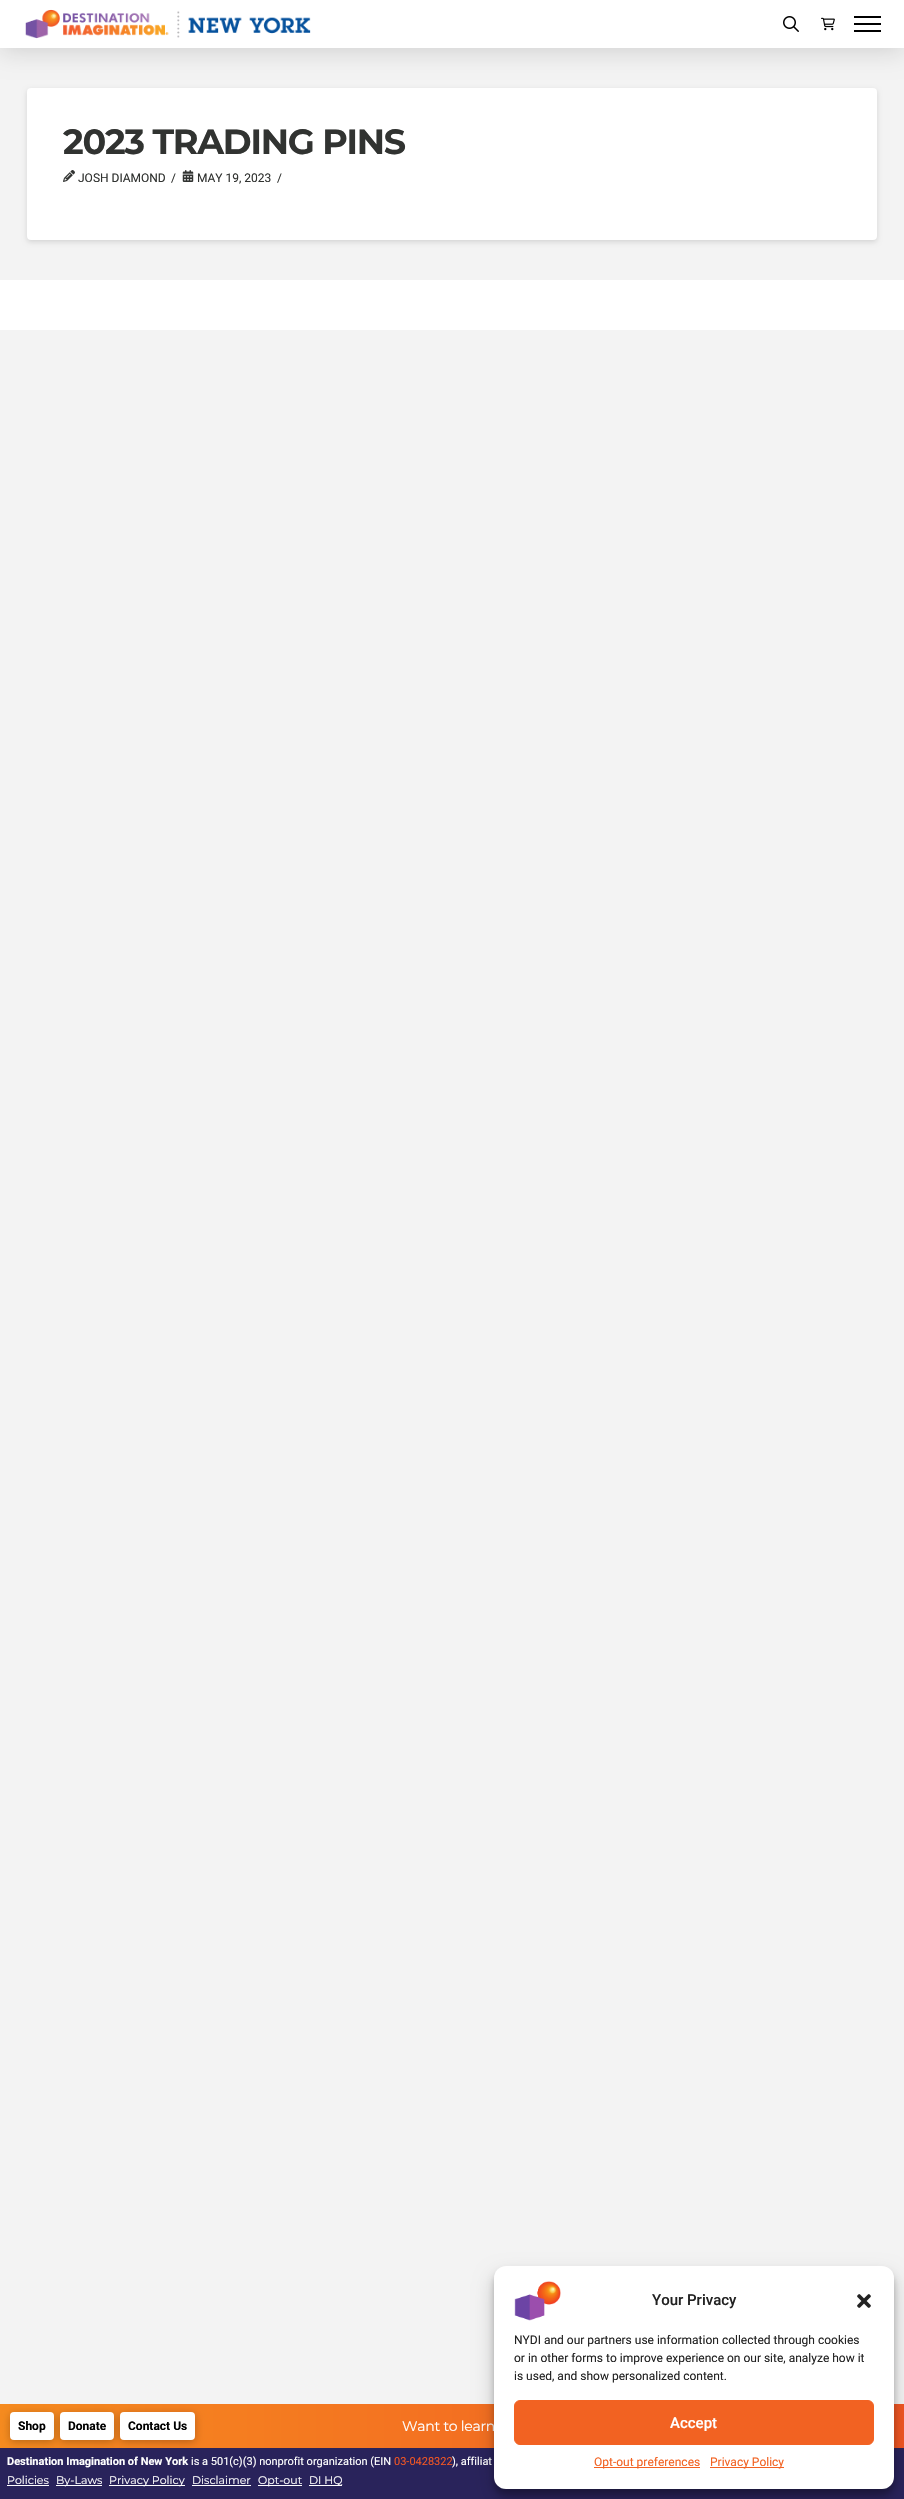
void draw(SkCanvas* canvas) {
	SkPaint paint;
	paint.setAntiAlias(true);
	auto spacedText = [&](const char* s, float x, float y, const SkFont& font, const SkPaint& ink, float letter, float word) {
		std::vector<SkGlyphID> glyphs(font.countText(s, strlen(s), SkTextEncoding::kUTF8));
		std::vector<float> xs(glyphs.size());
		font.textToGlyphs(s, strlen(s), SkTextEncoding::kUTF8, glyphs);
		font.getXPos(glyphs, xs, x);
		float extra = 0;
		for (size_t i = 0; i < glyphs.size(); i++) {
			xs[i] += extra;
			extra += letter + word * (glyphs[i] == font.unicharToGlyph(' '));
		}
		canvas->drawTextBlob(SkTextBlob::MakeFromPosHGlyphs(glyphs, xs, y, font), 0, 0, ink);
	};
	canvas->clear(0xfff3f3f3);
	paint.setColor(0x21000000);
	paint.setMaskFilter(SkMaskFilter::MakeBlur(kNormal_SkBlurStyle, 2.5));
	canvas->drawRoundRect(SkRect::MakeXYWH(27, 90, 850, 152), 4, 4, paint);
	paint.setMaskFilter(nullptr);
	paint.setColor(0xffffffff);
	canvas->drawRoundRect(SkRect::MakeXYWH(27, 88, 850, 152), 4, 4, paint);
	SkFont f1(fontMgr->matchFamilyStyle("Montserrat", SkFontStyle::Bold()), 35);
	f1.setSubpixel(true);
	paint.setColor(0xff313331);
	spacedText("2023 TRADING PINS", 63, 154, f1, paint, -1.25, 0);
	canvas->drawImageRect(SkImages::DeferredFromEncodedData(SkData::MakeFromFileName("img1.png")), SkRect::MakeXYWH(63, 170, 12, 12), SkSamplingOptions());
	SkFont f2(fontMgr->matchFamilyStyle("Roboto", SkFontStyle::Normal()), 12);
	f2.setSubpixel(true);
	canvas->drawString("JOSH DIAMOND", 78, 182, f2, paint);
	canvas->drawString("/", 171, 182, f2, paint);
	canvas->drawImageRect(SkImages::DeferredFromEncodedData(SkData::MakeFromFileName("img2.png")), SkRect::MakeXYWH(182, 170, 12, 12), SkSamplingOptions());
	canvas->drawString("MAY 19, 2023", 197, 182, f2, paint);
	canvas->drawString("/", 277, 182, f2, paint);
	paint.setColor(0xffffffff);
	canvas->drawRect(SkRect::MakeXYWH(0, 280, 904, 50), paint);
	paint.setColor(0x26000000);
	paint.setMaskFilter(SkMaskFilter::MakeBlur(kNormal_SkBlurStyle, 12.5));
	canvas->drawRect(SkRect::MakeXYWH(0, 3, 904, 48), paint);
	paint.setMaskFilter(nullptr);
	paint.setColor(0xffffffff);
	canvas->drawRect(SkRect::MakeXYWH(0, 0, 904, 48), paint);
	canvas->drawImageRect(SkImages::DeferredFromEncodedData(SkData::MakeFromFileName("img3.png")), SkRect::MakeXYWH(25, 9, 286, 30), SkSamplingOptions());
	canvas->drawImageRect(SkImages::DeferredFromEncodedData(SkData::MakeFromFileName("img4.png")), SkRect::MakeXYWH(783, 16, 16, 16), SkSamplingOptions());
	canvas->drawImageRect(SkImages::DeferredFromEncodedData(SkData::MakeFromFileName("img5.png")), SkRect::MakeXYWH(821, 17, 14, 14), SkSamplingOptions());
	paint.setColor(0xff000000);
	canvas->drawRect(SkRect::MakeXYWH(854, 16, 27, 2), paint);
	canvas->drawRect(SkRect::MakeXYWH(854, 23, 27, 2), paint);
	canvas->drawRect(SkRect::MakeXYWH(854, 30, 27, 2), paint);
	{
		const SkColor colors[] = {0xfff68b1f, 0xfff15623};
		const float stops[] = {0, 1};
		const SkPoint ends[] = {{0, 2426}, {904, 2426}};
		paint.setShader(SkGradientShader::MakeLinear(ends, colors, stops, 2, SkTileMode::kClamp));
		paint.setAlpha(255);
	}
	canvas->drawRect(SkRect::MakeXYWH(0, 2404, 904, 44), paint);
	paint.setShader(nullptr);
	paint.setColor(0xff29235b);
	canvas->drawRect(SkRect::MakeXYWH(0, 2448, 904, 51), paint);
	paint.setColor(0x40000000);
	paint.setMaskFilter(SkMaskFilter::MakeBlur(kNormal_SkBlurStyle, 4));
	canvas->drawRoundRect(SkRect::MakeXYWH(10, 2414, 44, 28), 4, 4, paint);
	paint.setMaskFilter(nullptr);
	paint.setColor(0xffffffff);
	canvas->drawRoundRect(SkRect::MakeXYWH(10, 2412, 44, 28), 4, 4, paint);
	SkFont f3(fontMgr->matchFamilyStyle("Roboto", SkFontStyle::Bold()), 12);
	f3.setSubpixel(true);
	paint.setColor(0xff000000);
	canvas->drawString("Shop", 18, 2430, f3, paint);
	paint.setColor(0x40000000);
	paint.setMaskFilter(SkMaskFilter::MakeBlur(kNormal_SkBlurStyle, 4));
	canvas->drawRoundRect(SkRect::MakeXYWH(60, 2414, 54, 28), 4, 4, paint);
	paint.setMaskFilter(nullptr);
	paint.setColor(0xffffffff);
	canvas->drawRoundRect(SkRect::MakeXYWH(60, 2412, 54, 28), 4, 4, paint);
	paint.setColor(0xff000000);
	canvas->drawString("Donate", 68, 2430, f3, paint);
	paint.setColor(0x40000000);
	paint.setMaskFilter(SkMaskFilter::MakeBlur(kNormal_SkBlurStyle, 4));
	canvas->drawRoundRect(SkRect::MakeXYWH(120, 2414, 75, 28), 4, 4, paint);
	paint.setMaskFilter(nullptr);
	paint.setColor(0xffffffff);
	canvas->drawRoundRect(SkRect::MakeXYWH(120, 2412, 75, 28), 4, 4, paint);
	paint.setColor(0xff000000);
	canvas->drawString("Contact Us", 128, 2430, f3, paint);
	SkFont f4(fontMgr->matchFamilyStyle("Montserrat", SkFontStyle::Normal()), 14);
	f4.setSubpixel(true);
	paint.setColor(0xffffffff);
	spacedText("Want to learn", 402, 2431, f4, paint, -0.25, 0);
	SkFont f5(fontMgr->matchFamilyStyle("Roboto", SkFontStyle::Bold()), 11);
	f5.setSubpixel(true);
	canvas->drawString("Destination Imagination of New York", 7, 2465, f5, paint);
	SkFont f6(fontMgr->matchFamilyStyle("Roboto", SkFontStyle::Normal()), 11);
	f6.setSubpixel(true);
	canvas->drawString("is a 501(c)(3) nonprofit organization (EIN", 191, 2465, f6, paint);
	paint.setColor(0xfff15623);
	canvas->drawString("03‑0428322", 394, 2465, f6, paint);
	paint.setColor(0xffffffff);
	canvas->drawString("), affiliat", 452, 2465, f6, paint);
	SkFont f7(fontMgr->matchFamilyStyle("Montserrat", SkFontStyle::Normal()), 11);
	f7.setSubpixel(true);
	canvas->drawString("Policies", 7, 2484, f7, paint);
	canvas->drawRect(SkRect::MakeXYWH(7, 2485, 42, 1), paint);
	canvas->drawRect(SkRect::MakeXYWH(56, 2485, 46, 1), paint);
	canvas->drawString("By-Laws", 56, 2484, f7, paint);
	canvas->drawRect(SkRect::MakeXYWH(109, 2485, 76, 1), paint);
	canvas->drawString("Privacy Policy", 109, 2484, f7, paint);
	canvas->drawString("Disclaimer", 192, 2484, f7, paint);
	canvas->drawRect(SkRect::MakeXYWH(192, 2485, 59, 1), paint);
	canvas->drawRect(SkRect::MakeXYWH(258, 2485, 44, 1), paint);
	canvas->drawString("Opt-out", 258, 2484, f7, paint);
	canvas->drawRect(SkRect::MakeXYWH(309, 2485, 33, 1), paint);
	canvas->drawString("DI HQ", 309, 2484, f7, paint);
	paint.setColor(0x3b000000);
	paint.setMaskFilter(SkMaskFilter::MakeBlur(kNormal_SkBlurStyle, 3));
	canvas->drawRoundRect(SkRect::MakeXYWH(494, 2272, 400, 223), 12, 12, paint);
	paint.setMaskFilter(nullptr);
	paint.setColor(0x30000000);
	paint.setMaskFilter(SkMaskFilter::MakeBlur(kNormal_SkBlurStyle, 10));
	canvas->drawRoundRect(SkRect::MakeXYWH(494, 2276, 400, 223), 12, 12, paint);
	paint.setMaskFilter(nullptr);
	paint.setColor(0xffffffff);
	canvas->drawRoundRect(SkRect::MakeXYWH(494, 2266, 400, 223), 12, 12, paint);
	canvas->drawImageRect(SkImages::DeferredFromEncodedData(SkData::MakeFromFileName("img6.png")), SkRect::MakeXYWH(514, 2281, 47, 40), SkSamplingOptions());
	SkFont f8(fontMgr->matchFamilyStyle("Roboto", SkFontStyle(500, SkFontStyle::kNormal_Width, SkFontStyle::kUpright_Slant)), 15);
	f8.setSubpixel(true);
	paint.setColor(0xff222222);
	canvas->drawString("Your Privacy", 652, 2305, f8, paint);
	canvas->drawImageRect(SkImages::DeferredFromEncodedData(SkData::MakeFromFileName("img7.png")), SkRect::MakeXYWH(857, 2294, 14, 14), SkSamplingOptions());
	canvas->drawString("NYDI and our partners use information collected through cookies", 514, 2344, f2, paint);
	canvas->drawString("or in other forms to improve experience on our site, analyze how it", 514, 2362, f2, paint);
	canvas->drawString("is used, and show personalized content.", 514, 2380, f2, paint);
	paint.setColor(0xfff26222);
	canvas->drawRoundRect(SkRect::MakeXYWH(514.5, 2400.5, 359, 44), 5.5, 5.5, paint);
	paint.setStroke(true);
	paint.setStrokeWidth(1);
	canvas->drawRoundRect(SkRect::MakeXYWH(514.5, 2400.5, 359, 44), 5.5, 5.5, paint);
	paint.setStroke(false);
	paint.setColor(0xffffffff);
	canvas->drawString("Accept", 670, 2428, f8, paint);
	paint.setColor(0xfff26222);
	canvas->drawRect(SkRect::MakeXYWH(594, 2467, 106, 1), paint);
	canvas->drawString("Opt-out preferences", 594, 2466, f2, paint);
	canvas->drawRect(SkRect::MakeXYWH(710, 2467, 74, 1), paint);
	canvas->drawString("Privacy Policy", 710, 2466, f2, paint);
}
